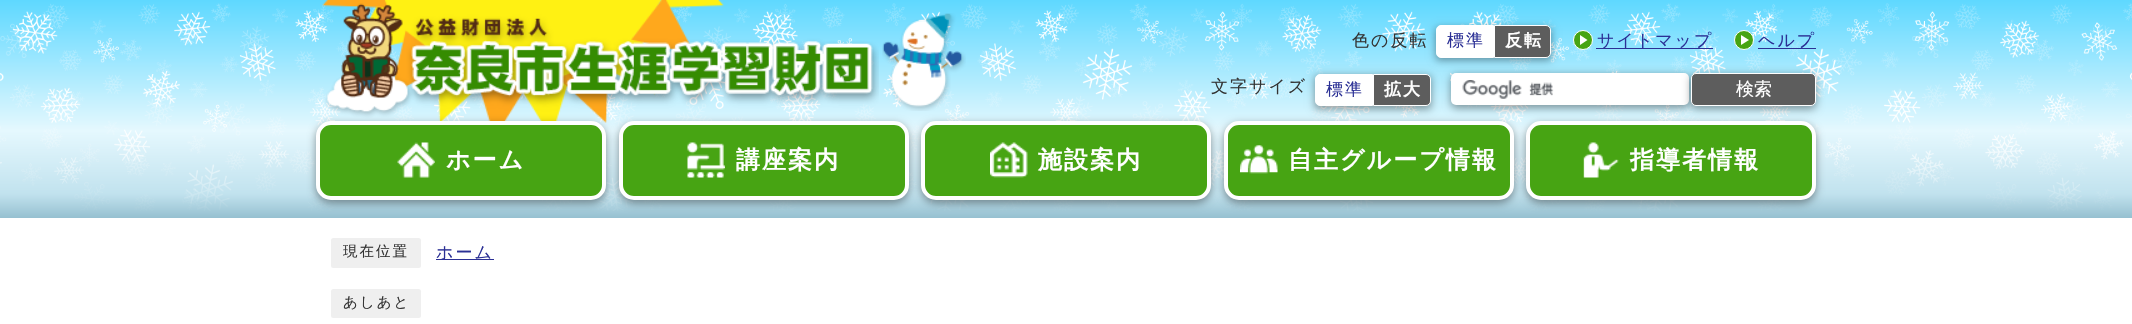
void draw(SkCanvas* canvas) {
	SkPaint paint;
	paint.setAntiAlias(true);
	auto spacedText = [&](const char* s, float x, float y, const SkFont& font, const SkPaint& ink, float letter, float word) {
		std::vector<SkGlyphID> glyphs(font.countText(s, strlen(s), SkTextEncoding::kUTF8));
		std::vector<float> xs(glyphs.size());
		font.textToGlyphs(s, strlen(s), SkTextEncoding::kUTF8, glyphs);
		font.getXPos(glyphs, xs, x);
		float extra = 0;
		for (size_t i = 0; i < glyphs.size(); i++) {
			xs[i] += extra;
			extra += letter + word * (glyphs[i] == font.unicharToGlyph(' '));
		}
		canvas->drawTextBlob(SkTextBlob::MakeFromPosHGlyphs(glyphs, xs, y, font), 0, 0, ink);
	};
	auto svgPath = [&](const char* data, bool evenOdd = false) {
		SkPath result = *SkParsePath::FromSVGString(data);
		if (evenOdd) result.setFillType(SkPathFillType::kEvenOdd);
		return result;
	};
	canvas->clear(0xffffffff);
	{
		const SkColor colors[] = {0xff5ed8ff, 0xffe5f8fe, 0xffc1e2ee, 0xff96c0d0};
		const float stops[] = {0, 0.6, 0.89, 1};
		const SkPoint ends[] = {{1066, 0}, {1066, 218}};
		paint.setShader(SkGradientShader::MakeLinear(ends, colors, stops, 4, SkTileMode::kClamp));
		paint.setAlpha(255);
	}
	canvas->drawRect(SkRect::MakeXYWH(0, 0, 2132, 218), paint);
	canvas->drawImageRect(SkImages::DeferredFromEncodedData(SkData::MakeFromFileName("img1.png")), SkRect::MakeXYWH(0, 3, 2132, 208), SkSamplingOptions());
	canvas->drawImageRect(SkImages::DeferredFromEncodedData(SkData::MakeFromFileName("img2.png")), SkRect::MakeXYWH(322, 0, 557, 123), SkSamplingOptions());
	canvas->drawImageRect(SkImages::DeferredFromEncodedData(SkData::MakeFromFileName("img3.png")), SkRect::MakeXYWH(882, 13, 84, 98), SkSamplingOptions());
	SkFont f1(fontMgr->matchFamilyStyle("WenQuanYi Zen Hei", SkFontStyle(500, SkFontStyle::kNormal_Width, SkFontStyle::kUpright_Slant)), 17);
	f1.setSubpixel(true);
	paint.setShader(nullptr);
	paint.setColor(0xff333333);
	spacedText("色の反転", 1352, 46, f1, paint, 2, 0);
	paint.setColor(0x66000000);
	paint.setMaskFilter(SkMaskFilter::MakeBlur(kNormal_SkBlurStyle, 4));
	canvas->drawRect(SkRect::MakeXYWH(1436, 28, 115, 32), paint);
	paint.setMaskFilter(nullptr);
	paint.setColor(0xffffffff);
	canvas->drawPath(svgPath("M1441 25.5H1493.5V57.5H1441C1438.5 57.5 1436.5 55.5 1436.5 53V30C1436.5 27.5 1438.5 25.5 1441 25.5Z"), paint);
	paint.setStroke(true);
	paint.setStrokeWidth(1);
	canvas->drawPath(svgPath("M1441 25.5H1493.5V57.5H1441C1438.5 57.5 1436.5 55.5 1436.5 53V30C1436.5 27.5 1438.5 25.5 1441 25.5Z"), paint);
	paint.setStroke(false);
	paint.setColor(0xff2b3095);
	spacedText("標準", 1447, 46, f1, paint, 2, 0);
	paint.setColor(0xff5d5d5d);
	canvas->drawPath(svgPath("M1494.5 25.5H1546C1548.5 25.5 1550.5 27.5 1550.5 30V53C1550.5 55.5 1548.5 57.5 1546 57.5H1494.5Z"), paint);
	paint.setStroke(true);
	paint.setColor(0xffffffff);
	canvas->drawPath(svgPath("M1494.5 25.5H1546C1548.5 25.5 1550.5 27.5 1550.5 30V53C1550.5 55.5 1548.5 57.5 1546 57.5H1494.5Z"), paint);
	SkFont f2(fontMgr->matchFamilyStyle("WenQuanYi Zen Hei", SkFontStyle::Bold()), 17);
	f2.setSubpixel(true);
	paint.setStroke(false);
	spacedText("反転", 1505, 46, f2, paint, 2, 0);
	paint.setColor(0xff47a413);
	canvas->drawCircle(1583, 40, 9.5, paint);
	paint.setStroke(true);
	paint.setColor(0xffffffff);
	canvas->drawCircle(1583, 40, 9.5, paint);
	paint.setStroke(false);
	paint.setColor(0xff2b3095);
	canvas->drawRect(SkRect::MakeXYWH(1596, 48, 117, 1), paint);
	spacedText("サイトマップ", 1597, 46, f1, paint, 2, 0);
	paint.setColor(0xffffffff);
	canvas->drawPath(svgPath("M1580 45V35L1587.5 40Z"), paint);
	paint.setColor(0xff47a413);
	canvas->drawCircle(1744, 40, 9.5, paint);
	paint.setStroke(true);
	paint.setColor(0xffffffff);
	canvas->drawCircle(1744, 40, 9.5, paint);
	paint.setStroke(false);
	paint.setColor(0xff2b3095);
	spacedText("ヘルプ", 1758, 46, f1, paint, 2, 0);
	canvas->drawRect(SkRect::MakeXYWH(1758, 48, 58, 1), paint);
	paint.setColor(0xffffffff);
	canvas->drawPath(svgPath("M1741 45V35L1749 40Z"), paint);
	paint.setColor(0xff333333);
	spacedText("文字サイズ", 1211, 92, f1, paint, 2, 0);
	paint.setColor(0x66000000);
	paint.setMaskFilter(SkMaskFilter::MakeBlur(kNormal_SkBlurStyle, 4));
	canvas->drawRect(SkRect::MakeXYWH(1315, 76, 116, 33), paint);
	paint.setMaskFilter(nullptr);
	paint.setColor(0xffffffff);
	canvas->drawPath(svgPath("M1320 74.5H1372.5V105.5H1320C1317.5 105.5 1315.5 103.5 1315.5 101V79C1315.5 76.5 1317.5 74.5 1320 74.5Z"), paint);
	paint.setStroke(true);
	canvas->drawPath(svgPath("M1320 74.5H1372.5V105.5H1320C1317.5 105.5 1315.5 103.5 1315.5 101V79C1315.5 76.5 1317.5 74.5 1320 74.5Z"), paint);
	paint.setStroke(false);
	paint.setColor(0xff2b3095);
	spacedText("標準", 1326, 95, f1, paint, 2, 0);
	paint.setColor(0xff5d5d5d);
	canvas->drawPath(svgPath("M1373.5 74.5H1426C1428.5 74.5 1430.5 76.5 1430.5 79V101C1430.5 103.5 1428.5 105.5 1426 105.5H1373.5Z"), paint);
	paint.setStroke(true);
	paint.setColor(0xffffffff);
	canvas->drawPath(svgPath("M1373.5 74.5H1426C1428.5 74.5 1430.5 76.5 1430.5 79V101C1430.5 103.5 1428.5 105.5 1426 105.5H1373.5Z"), paint);
	paint.setStroke(false);
	spacedText("拡大", 1384, 95, f2, paint, 2, 0);
	paint.setColor(0x66000000);
	paint.setMaskFilter(SkMaskFilter::MakeBlur(kNormal_SkBlurStyle, 4));
	canvas->drawRoundRect(SkRect::MakeXYWH(1451, 75, 238, 33), 5, 5, paint);
	paint.setMaskFilter(nullptr);
	paint.setColor(0xffffffff);
	canvas->drawRoundRect(SkRect::MakeXYWH(1451, 73, 238, 32), 5, 5, paint);
	canvas->drawImageRect(SkImages::DeferredFromEncodedData(SkData::MakeFromFileName("img4.png")), SkRect::MakeXYWH(1462, 80, 92, 19), SkSamplingOptions());
	paint.setColor(0x66000000);
	paint.setMaskFilter(SkMaskFilter::MakeBlur(kNormal_SkBlurStyle, 4));
	canvas->drawRoundRect(SkRect::MakeXYWH(1691, 75, 125, 34), 5, 5, paint);
	paint.setMaskFilter(nullptr);
	paint.setColor(0xff5d5d5d);
	canvas->drawRoundRect(SkRect::MakeXYWH(1691.5, 73.5, 124, 32), 4.5, 4.5, paint);
	paint.setStroke(true);
	paint.setColor(0xffffffff);
	canvas->drawRoundRect(SkRect::MakeXYWH(1691.5, 73.5, 124, 32), 4.5, 4.5, paint);
	SkFont f3(fontMgr->matchFamilyStyle("WenQuanYi Zen Hei", SkFontStyle(500, SkFontStyle::kNormal_Width, SkFontStyle::kUpright_Slant)), 18);
	f3.setSubpixel(true);
	paint.setStroke(false);
	canvas->drawString("検索", 1736, 95, f3, paint);
	paint.setColor(0x66000000);
	paint.setMaskFilter(SkMaskFilter::MakeBlur(kNormal_SkBlurStyle, 4));
	canvas->drawRoundRect(SkRect::MakeXYWH(316, 124, 290, 79), 15, 15, paint);
	paint.setMaskFilter(nullptr);
	paint.setColor(0xff47a413);
	canvas->drawRoundRect(SkRect::MakeXYWH(318, 123, 286, 75), 13, 13, paint);
	paint.setStroke(true);
	paint.setStrokeWidth(4);
	paint.setColor(0xffffffff);
	canvas->drawRoundRect(SkRect::MakeXYWH(318, 123, 286, 75), 13, 13, paint);
	canvas->drawImageRect(SkImages::DeferredFromEncodedData(SkData::MakeFromFileName("img5.png")), SkRect::MakeXYWH(397, 142, 38, 36), SkSamplingOptions());
	SkFont f4(fontMgr->matchFamilyStyle("WenQuanYi Zen Hei", SkFontStyle::Bold()), 24);
	f4.setSubpixel(true);
	paint.setStroke(false);
	spacedText("ホーム", 446, 168, f4, paint, 2, 0);
	paint.setColor(0x66000000);
	paint.setMaskFilter(SkMaskFilter::MakeBlur(kNormal_SkBlurStyle, 4));
	canvas->drawRoundRect(SkRect::MakeXYWH(619, 124, 290, 79), 15, 15, paint);
	paint.setMaskFilter(nullptr);
	paint.setColor(0xff47a413);
	canvas->drawRoundRect(SkRect::MakeXYWH(621, 123, 286, 75), 13, 13, paint);
	paint.setStroke(true);
	paint.setColor(0xffffffff);
	canvas->drawRoundRect(SkRect::MakeXYWH(621, 123, 286, 75), 13, 13, paint);
	canvas->drawImageRect(SkImages::DeferredFromEncodedData(SkData::MakeFromFileName("img6.png")), SkRect::MakeXYWH(687, 142, 38, 36), SkSamplingOptions());
	paint.setStroke(false);
	spacedText("講座案内", 736, 168, f4, paint, 2, 0);
	paint.setColor(0x66000000);
	paint.setMaskFilter(SkMaskFilter::MakeBlur(kNormal_SkBlurStyle, 4));
	canvas->drawRoundRect(SkRect::MakeXYWH(921, 124, 290, 79), 15, 15, paint);
	paint.setMaskFilter(nullptr);
	paint.setColor(0xff47a413);
	canvas->drawRoundRect(SkRect::MakeXYWH(923, 123, 286, 75), 13, 13, paint);
	paint.setStroke(true);
	paint.setColor(0xffffffff);
	canvas->drawRoundRect(SkRect::MakeXYWH(923, 123, 286, 75), 13, 13, paint);
	canvas->drawImageRect(SkImages::DeferredFromEncodedData(SkData::MakeFromFileName("img7.png")), SkRect::MakeXYWH(990, 142, 38, 36), SkSamplingOptions());
	paint.setStroke(false);
	spacedText("施設案内", 1038, 168, f4, paint, 2, 0);
	paint.setColor(0x66000000);
	paint.setMaskFilter(SkMaskFilter::MakeBlur(kNormal_SkBlurStyle, 4));
	canvas->drawRoundRect(SkRect::MakeXYWH(1224, 124, 290, 79), 15, 15, paint);
	paint.setMaskFilter(nullptr);
	paint.setColor(0xff47a413);
	canvas->drawRoundRect(SkRect::MakeXYWH(1226, 123, 286, 75), 13, 13, paint);
	paint.setStroke(true);
	paint.setColor(0xffffffff);
	canvas->drawRoundRect(SkRect::MakeXYWH(1226, 123, 286, 75), 13, 13, paint);
	canvas->drawImageRect(SkImages::DeferredFromEncodedData(SkData::MakeFromFileName("img8.png")), SkRect::MakeXYWH(1240, 145, 38, 29), SkSamplingOptions());
	paint.setStroke(false);
	spacedText("自主グループ情報", 1288, 168, f4, paint, 2, 0);
	paint.setColor(0x66000000);
	paint.setMaskFilter(SkMaskFilter::MakeBlur(kNormal_SkBlurStyle, 4));
	canvas->drawRoundRect(SkRect::MakeXYWH(1526, 124, 290, 79), 15, 15, paint);
	paint.setMaskFilter(nullptr);
	paint.setColor(0xff47a413);
	canvas->drawRoundRect(SkRect::MakeXYWH(1528, 123, 286, 75), 13, 13, paint);
	paint.setStroke(true);
	paint.setColor(0xffffffff);
	canvas->drawRoundRect(SkRect::MakeXYWH(1528, 123, 286, 75), 13, 13, paint);
	canvas->drawImageRect(SkImages::DeferredFromEncodedData(SkData::MakeFromFileName("img9.png")), SkRect::MakeXYWH(1583, 142, 36, 36), SkSamplingOptions());
	paint.setStroke(false);
	spacedText("指導者情報", 1630, 168, f4, paint, 2, 0);
	paint.setColor(0xffefefef);
	canvas->drawRoundRect(SkRect::MakeXYWH(331, 238, 90, 30), 2.5, 2.5, paint);
	SkFont f5(fontMgr->matchFamilyStyle("WenQuanYi Zen Hei", SkFontStyle(500, SkFontStyle::kNormal_Width, SkFontStyle::kUpright_Slant)), 14.5);
	f5.setSubpixel(true);
	paint.setColor(0xff333333);
	spacedText("現在位置", 343, 256, f5, paint, 2, 0);
	paint.setColor(0xff2b3095);
	canvas->drawRect(SkRect::MakeXYWH(436, 259, 58, 1), paint);
	spacedText("ホーム", 436, 258, f1, paint, 2, 0);
	paint.setColor(0xffefefef);
	canvas->drawRoundRect(SkRect::MakeXYWH(331, 289, 90, 29), 2.5, 2.5, paint);
	paint.setColor(0xff333333);
	spacedText("あしあと", 343, 307, f5, paint, 2, 0);
}
